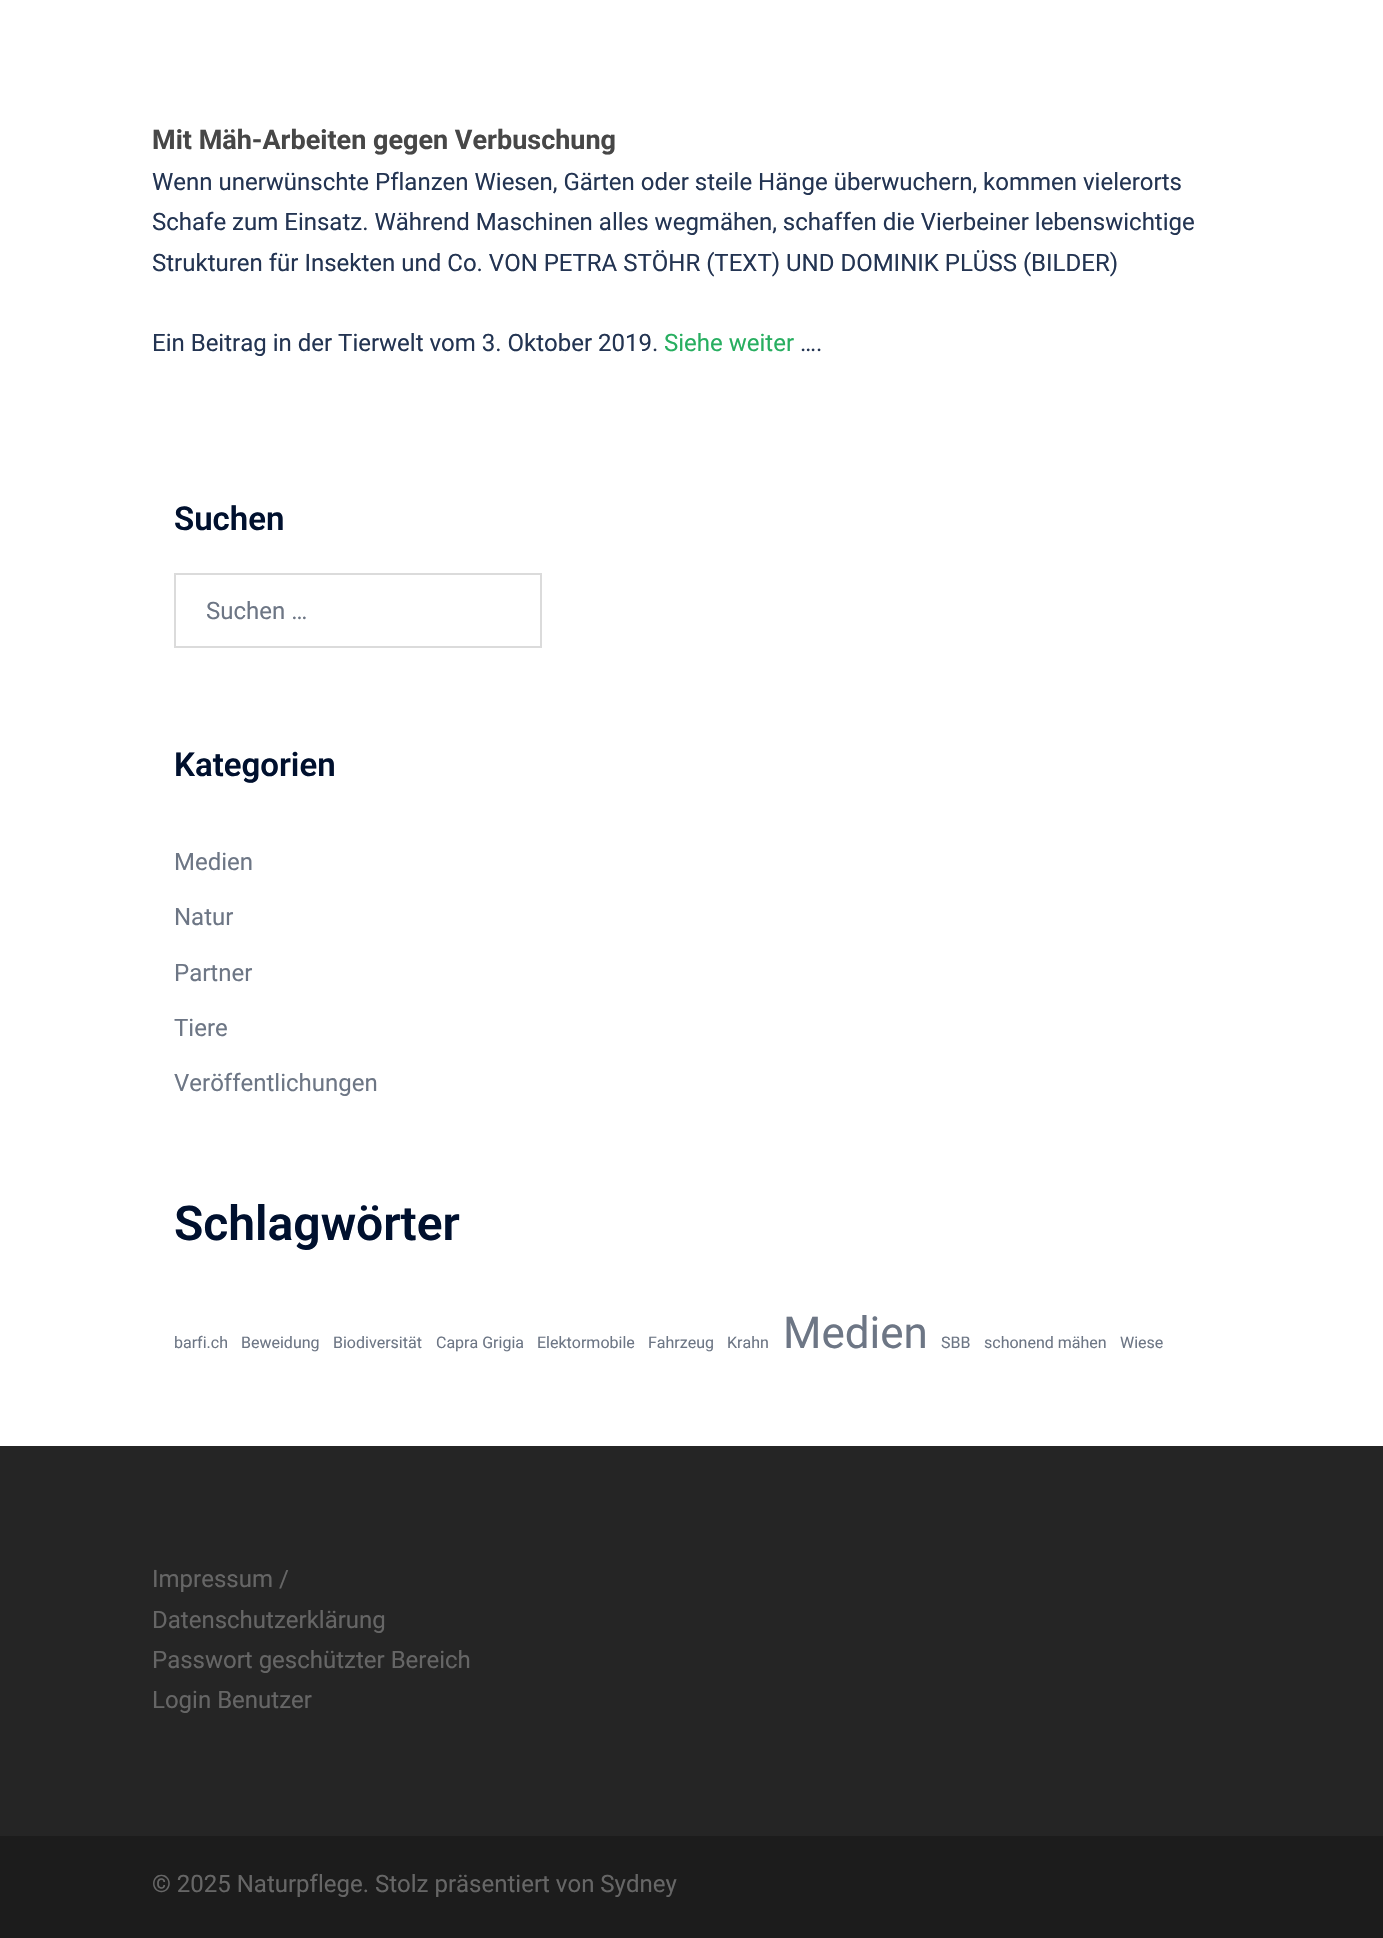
void draw(SkCanvas* canvas) {
	SkPaint paint;
	paint.setAntiAlias(true);
	canvas->clear(0xffffffff);
	SkFont f1(fontMgr->matchFamilyStyle("Roboto", SkFontStyle::Bold()), 27);
	f1.setSubpixel(true);
	paint.setColor(0xff474747);
	canvas->drawString("Mit Mäh-Arbeiten gegen Verbuschung", 152, 149, f1, paint);
	SkFont f2(fontMgr->matchFamilyStyle("Roboto", SkFontStyle::Normal()), 24);
	f2.setSubpixel(true);
	paint.setColor(0xff233452);
	canvas->drawString("Wenn unerwünschte Pflanzen Wiesen, Gärten oder steile Hänge überwuchern, kommen vielerorts", 152, 190, f2, paint);
	canvas->drawString("Schafe zum Einsatz. Während Maschinen alles wegmähen, schaffen die Vierbeiner lebenswichtige", 152, 230, f2, paint);
	canvas->drawString("Strukturen für Insekten und Co. VON PETRA STÖHR (TEXT) UND DOMINIK PLÜSS (BILDER)", 152, 271, f2, paint);
	canvas->drawString("Ein Beitrag in der Tierwelt vom 3. Oktober 2019.", 152, 351, f2, paint);
	paint.setColor(0xff27ae60);
	canvas->drawString("Siehe weiter", 664, 351, f2, paint);
	paint.setColor(0xff233452);
	canvas->drawString("….", 800, 351, f2, paint);
	SkFont f3(fontMgr->matchFamilyStyle("Roboto", SkFontStyle(600, SkFontStyle::kNormal_Width, SkFontStyle::kUpright_Slant)), 33);
	f3.setSubpixel(true);
	paint.setColor(0xff00102e);
	canvas->drawString("Suchen", 174, 530, f3, paint);
	paint.setStroke(true);
	paint.setStrokeWidth(2);
	paint.setColor(0xffdbdbdb);
	canvas->drawRect(SkRect::MakeXYWH(175, 574, 366, 73), paint);
	paint.setStroke(false);
	paint.setColor(0xff6d7685);
	canvas->drawString("Suchen …", 206, 619, f2, paint);
	paint.setColor(0xff00102e);
	canvas->drawString("Kategorien", 174, 776, f3, paint);
	paint.setColor(0xff6d7685);
	canvas->drawString("Medien", 174, 870, f2, paint);
	canvas->drawString("Natur", 174, 925, f2, paint);
	canvas->drawString("Partner", 174, 981, f2, paint);
	canvas->drawString("Tiere", 174, 1036, f2, paint);
	canvas->drawString("Veröffentlichungen", 174, 1091, f2, paint);
	SkFont f4(fontMgr->matchFamilyStyle("Roboto", SkFontStyle(600, SkFontStyle::kNormal_Width, SkFontStyle::kUpright_Slant)), 48);
	f4.setSubpixel(true);
	paint.setColor(0xff00102e);
	canvas->drawString("Schlagwörter", 174, 1240, f4, paint);
	SkFont f5(fontMgr->matchFamilyStyle("Roboto", SkFontStyle::Normal()), 16);
	f5.setSubpixel(true);
	paint.setColor(0xff6d7685);
	canvas->drawString("barfi.ch", 174, 1348, f5, paint);
	canvas->drawString("Beweidung", 241, 1348, f5, paint);
	canvas->drawString("Biodiversität", 333, 1348, f5, paint);
	canvas->drawString("Capra Grigia", 436, 1348, f5, paint);
	canvas->drawString("Elektormobile", 537, 1348, f5, paint);
	canvas->drawString("Fahrzeug", 648, 1348, f5, paint);
	canvas->drawString("Krahn", 727, 1348, f5, paint);
	SkFont f6(fontMgr->matchFamilyStyle("Roboto", SkFontStyle::Normal()), 44);
	f6.setSubpixel(true);
	canvas->drawString("Medien", 783, 1348, f6, paint);
	canvas->drawString("SBB", 941, 1348, f5, paint);
	canvas->drawString("schonend mähen", 984, 1348, f5, paint);
	canvas->drawString("Wiese", 1120, 1348, f5, paint);
	paint.setColor(0xff252525);
	canvas->drawRect(SkRect::MakeXYWH(0, 1446, 1383, 390), paint);
	paint.setColor(0xff666666);
	canvas->drawString("Impressum /", 152, 1587, f2, paint);
	canvas->drawString("Datenschutzerklärung", 152, 1628, f2, paint);
	canvas->drawString("Passwort geschützter Bereich", 152, 1668, f2, paint);
	canvas->drawString("Login Benutzer", 152, 1708, f2, paint);
	paint.setColor(0xff1c1c1c);
	canvas->drawRect(SkRect::MakeXYWH(0, 1836, 1383, 102), paint);
	paint.setColor(0xff666666);
	canvas->drawString("© 2025 Naturpflege. Stolz präsentiert von Sydney", 152, 1892, f2, paint);
}
